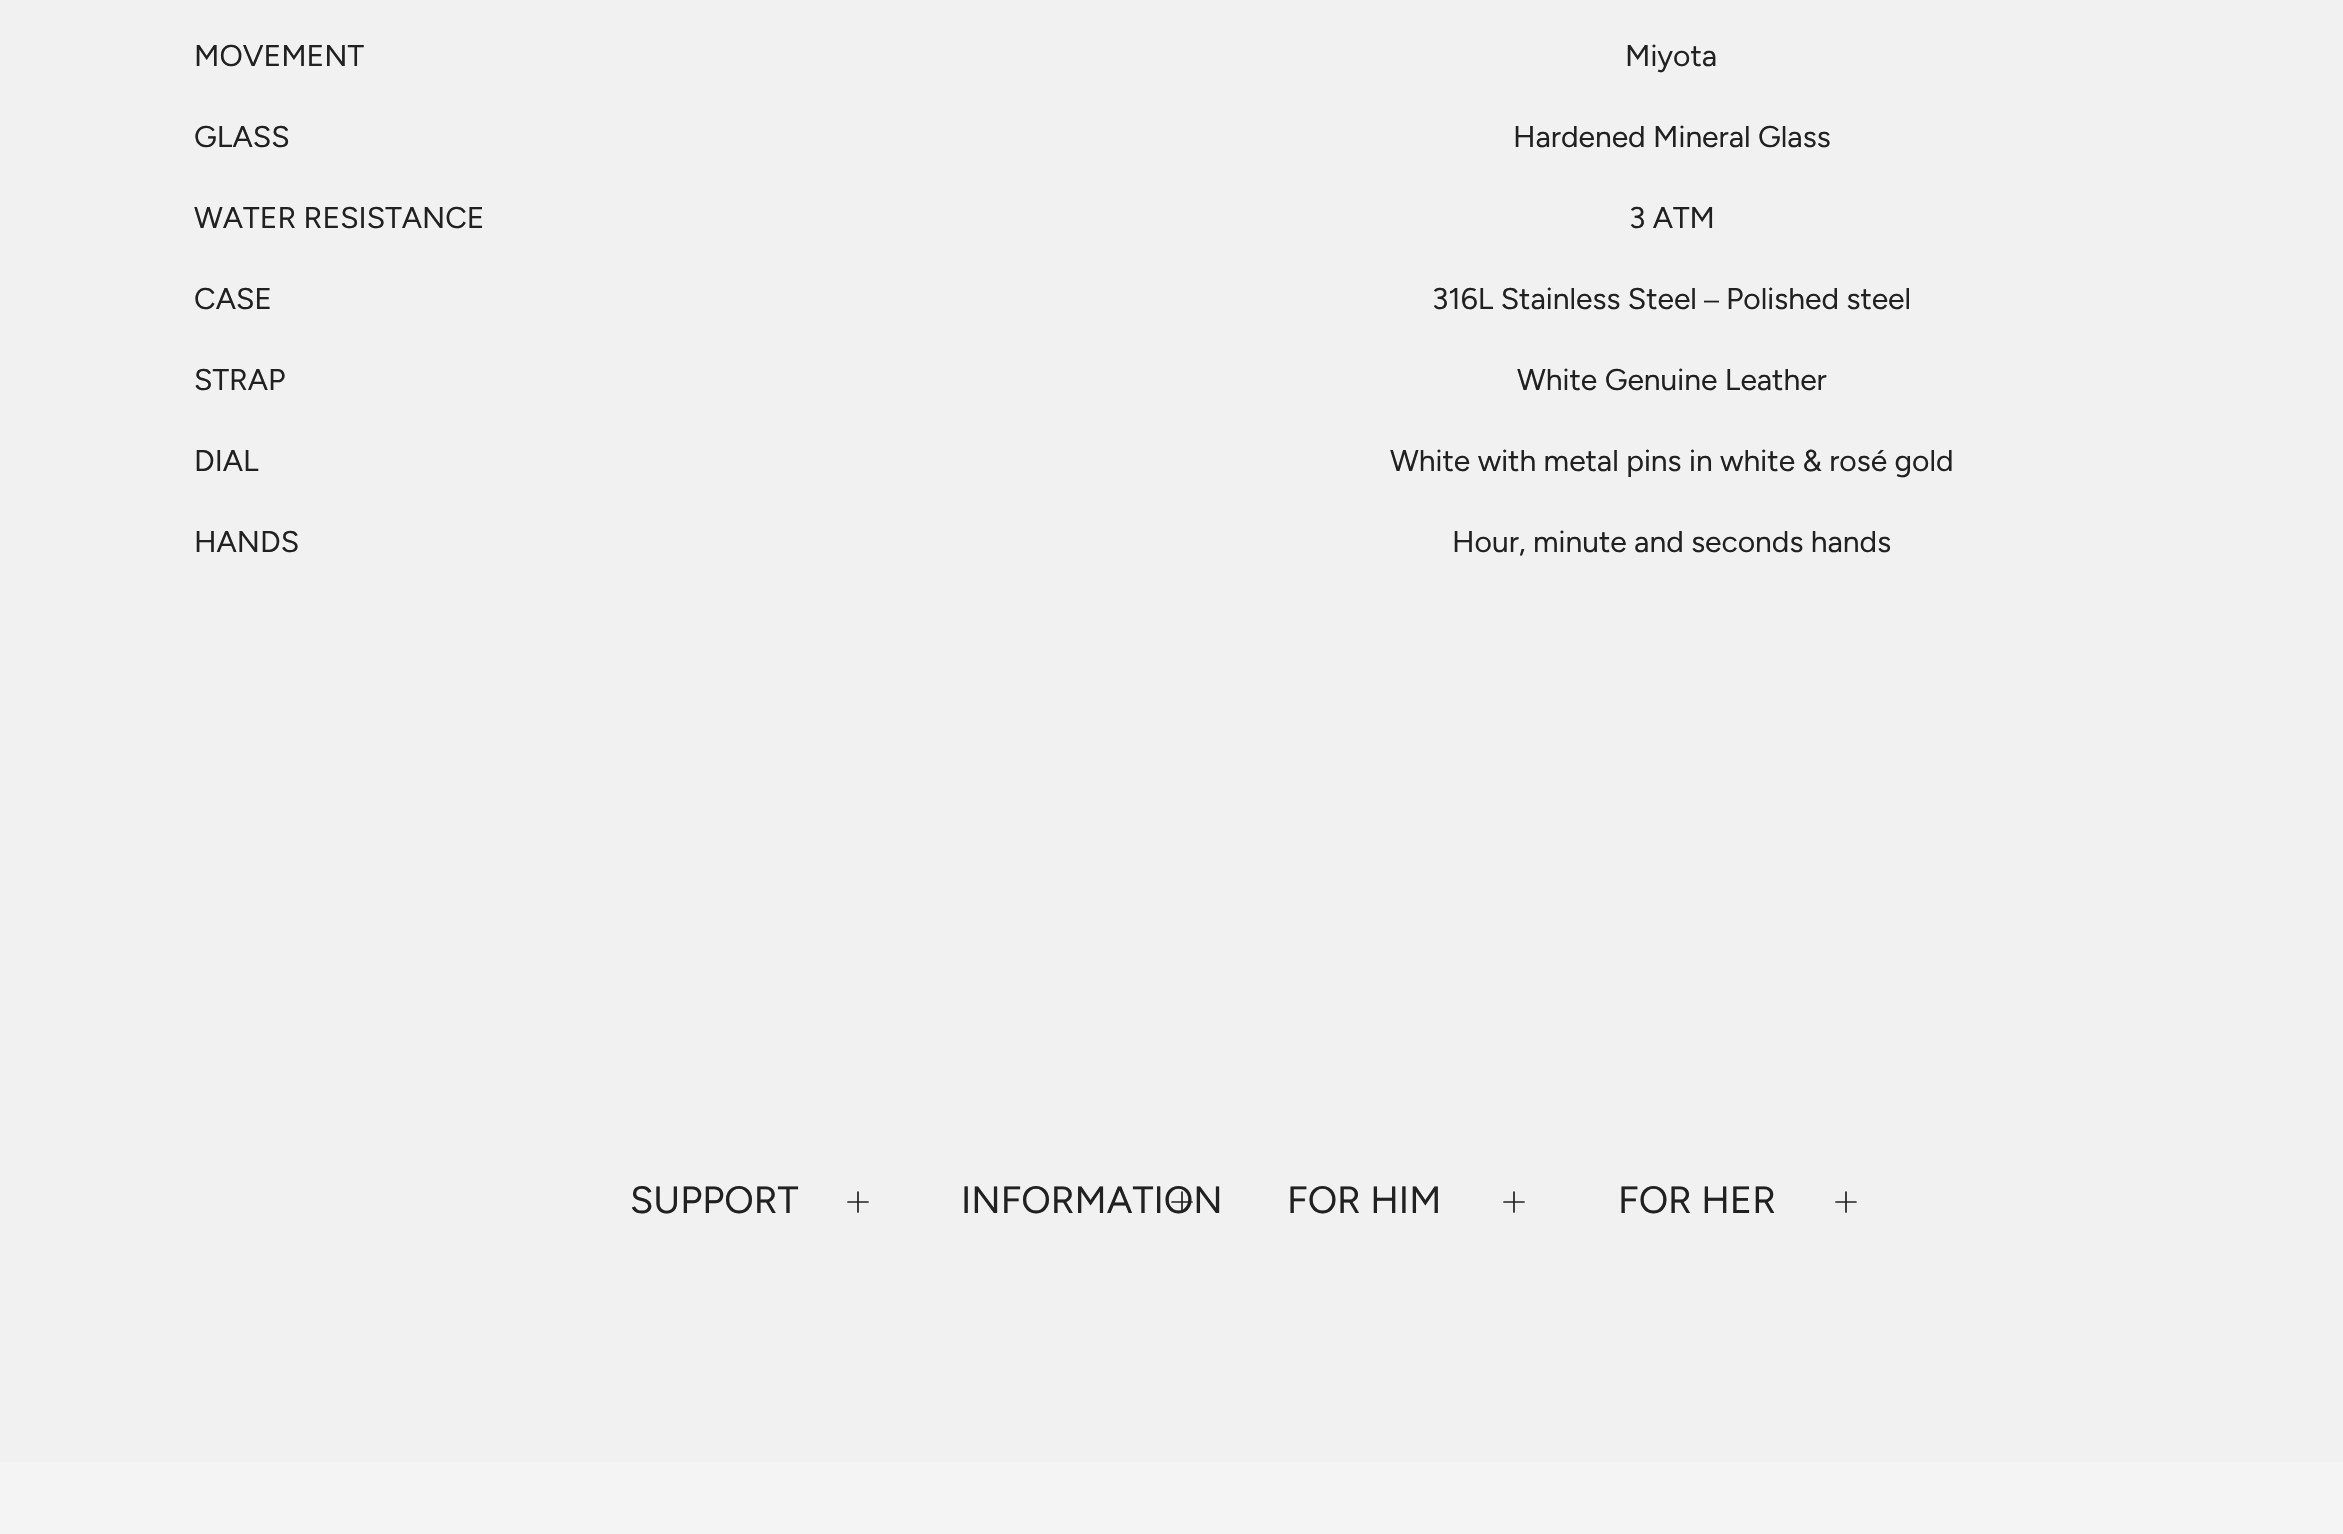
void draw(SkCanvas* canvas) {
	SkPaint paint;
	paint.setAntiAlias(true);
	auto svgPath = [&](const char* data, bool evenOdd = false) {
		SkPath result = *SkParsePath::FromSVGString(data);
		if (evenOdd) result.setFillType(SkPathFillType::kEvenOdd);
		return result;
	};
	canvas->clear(0xfff1f1f1);
	SkFont f1(fontMgr->matchFamilyStyle("Figtree", SkFontStyle::Normal()), 30);
	f1.setSubpixel(true);
	paint.setColor(0xff212121);
	canvas->drawString("MOVEMENT", 194, 66, f1, paint);
	canvas->drawString("Miyota", 1625, 66, f1, paint);
	canvas->drawString("GLASS", 194, 147, f1, paint);
	canvas->drawString("Hardened Mineral Glass", 1513, 147, f1, paint);
	canvas->drawString("WATER RESISTANCE", 194, 228, f1, paint);
	canvas->drawString("3 ATM", 1629, 228, f1, paint);
	canvas->drawString("CASE", 194, 309, f1, paint);
	canvas->drawString("316L Stainless Steel", 1432, 309, f1, paint);
	SkFont f2(fontMgr->matchFamilyStyle("FreeSans", SkFontStyle::Normal()), 30);
	f2.setSubpixel(true);
	canvas->drawString("⎯", 1704, 309, f2, paint);
	canvas->drawString("Polished steel", 1726, 309, f1, paint);
	canvas->drawString("STRAP", 194, 390, f1, paint);
	canvas->drawString("White Genuine Leather", 1517, 390, f1, paint);
	canvas->drawString("DIAL", 194, 471, f1, paint);
	canvas->drawString("White with metal pins in white & rosé gold", 1390, 471, f1, paint);
	canvas->drawString("HANDS", 194, 552, f1, paint);
	canvas->drawString("Hour, minute and seconds hands", 1452, 552, f1, paint);
	SkFont f3(fontMgr->matchFamilyStyle("Figtree", SkFontStyle::Normal()), 38);
	f3.setSubpixel(true);
	canvas->drawString("SUPPORT", 630, 1213, f3, paint);
	paint.setStroke(true);
	paint.setStrokeWidth(1.7);
	paint.setStrokeCap(SkPaint::kRound_Cap);
	paint.setStrokeJoin(SkPaint::kRound_Join);
	canvas->drawPath(svgPath("M848 1202H858M868 1202H858M858 1202V1192M858 1202V1212"), paint);
	paint.setStroke(false);
	canvas->drawString("INFORMATION", 961, 1213, f3, paint);
	paint.setStroke(true);
	canvas->drawPath(svgPath("M1172 1202H1182M1192 1202H1182M1182 1202V1192M1182 1202V1212"), paint);
	paint.setStroke(false);
	canvas->drawString("FOR HIM", 1287, 1213, f3, paint);
	paint.setStroke(true);
	canvas->drawPath(svgPath("M1504 1202H1514M1524 1202H1514M1514 1202V1192M1514 1202V1212"), paint);
	paint.setStroke(false);
	canvas->drawString("FOR HER", 1618, 1213, f3, paint);
	paint.setStroke(true);
	canvas->drawPath(svgPath("M1836 1202H1846M1856 1202H1846M1846 1202V1192M1846 1202V1212"), paint);
	paint.setStroke(false);
	paint.setColor(0xfff4f4f4);
	canvas->drawRect(SkRect::MakeXYWH(0, 1462, 2343, 72), paint);
}
